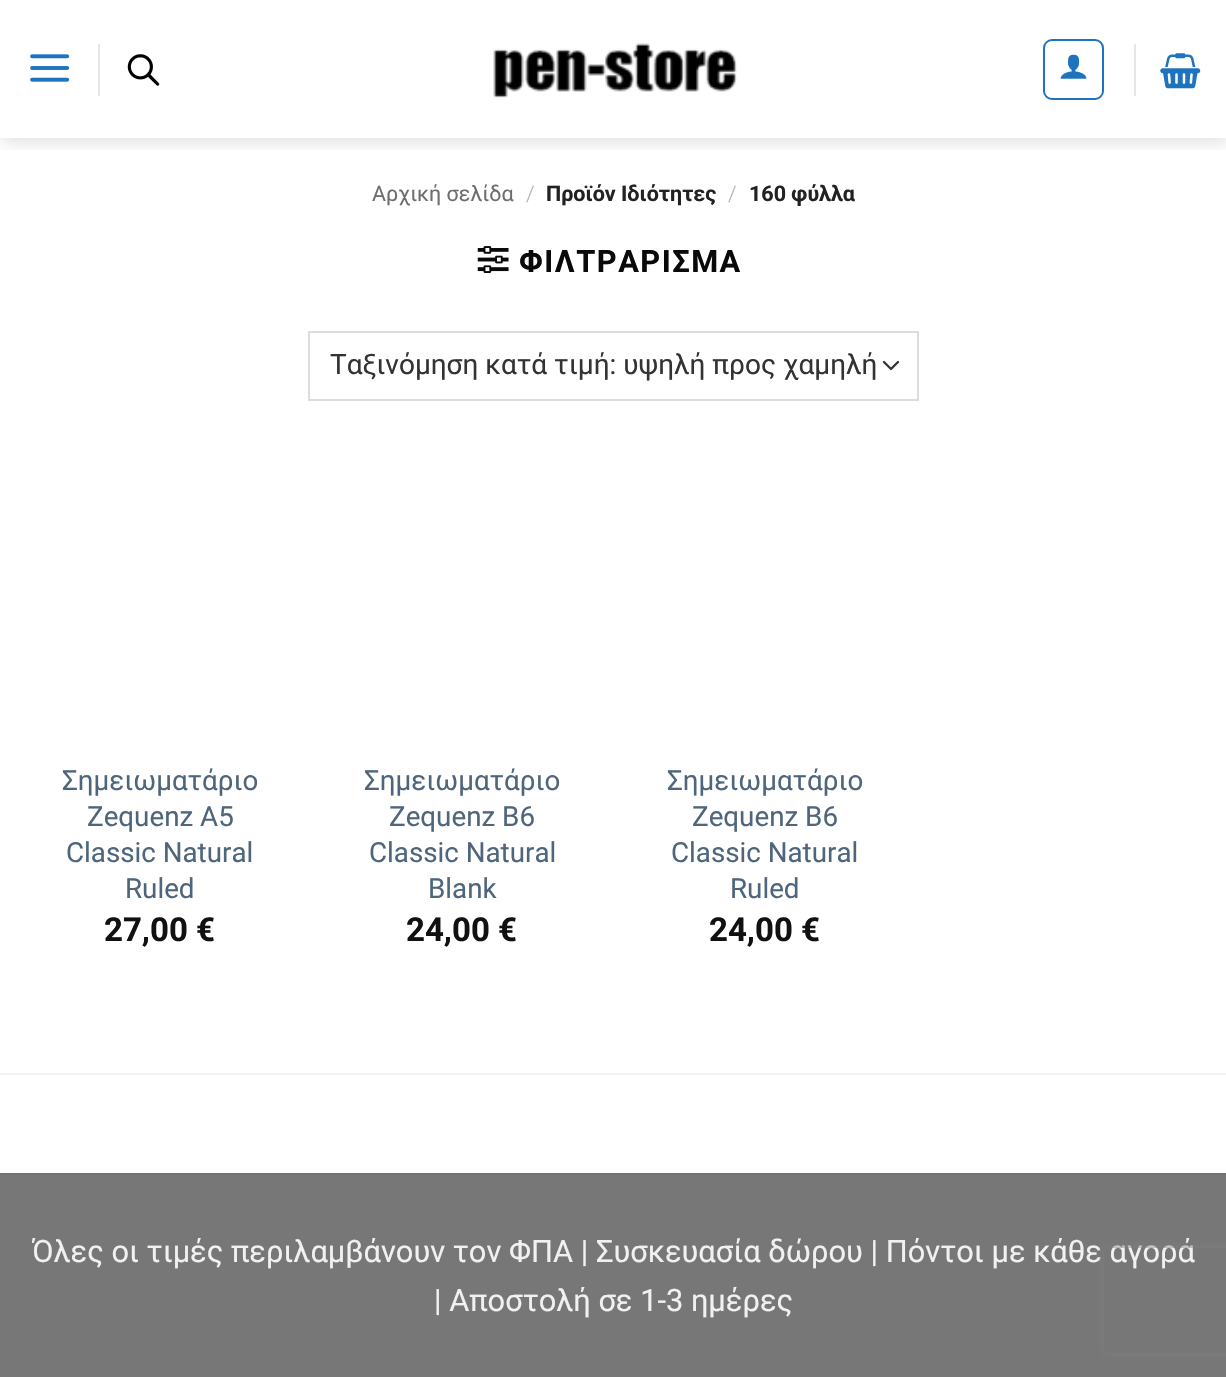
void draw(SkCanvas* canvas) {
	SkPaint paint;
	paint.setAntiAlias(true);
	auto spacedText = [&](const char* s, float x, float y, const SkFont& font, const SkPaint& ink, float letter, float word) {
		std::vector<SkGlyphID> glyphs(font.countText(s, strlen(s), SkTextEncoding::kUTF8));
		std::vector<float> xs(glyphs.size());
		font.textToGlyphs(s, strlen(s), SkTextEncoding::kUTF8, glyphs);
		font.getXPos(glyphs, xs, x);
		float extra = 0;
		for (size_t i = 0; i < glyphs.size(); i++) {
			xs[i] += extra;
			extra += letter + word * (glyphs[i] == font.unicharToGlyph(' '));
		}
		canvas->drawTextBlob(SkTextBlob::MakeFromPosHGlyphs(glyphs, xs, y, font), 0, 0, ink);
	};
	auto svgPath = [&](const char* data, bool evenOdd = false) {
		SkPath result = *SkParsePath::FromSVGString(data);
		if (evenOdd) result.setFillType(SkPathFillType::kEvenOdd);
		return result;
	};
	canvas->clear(0xffffffff);
	canvas->save();
	canvas->clipRect(SkRect::MakeXYWH(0, 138, 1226, 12));
	paint.setColor(0x26000000);
	paint.setMaskFilter(SkMaskFilter::MakeBlur(kNormal_SkBlurStyle, 9));
	canvas->drawRect(SkRect::MakeXYWH(2, 2, 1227, 138), paint);
	paint.setMaskFilter(nullptr);
	canvas->restore();
	canvas->drawImageRect(SkImages::DeferredFromEncodedData(SkData::MakeFromFileName("img1.png")), SkRect::MakeXYWH(30, 54, 40, 28), SkSamplingOptions());
	paint.setColor(0xffe6e6e6);
	canvas->drawRect(SkRect::MakeXYWH(98, 44, 2, 52), paint);
	canvas->drawImageRect(SkImages::DeferredFromEncodedData(SkData::MakeFromFileName("img2.png")), SkRect::MakeXYWH(127, 54, 33, 32), SkSamplingOptions());
	canvas->drawImageRect(SkImages::DeferredFromEncodedData(SkData::MakeFromFileName("img3.png")), SkRect::MakeXYWH(493, 43, 244, 55), SkSamplingOptions());
	paint.setStroke(true);
	paint.setStrokeWidth(2);
	paint.setColor(0xff1e73be);
	canvas->drawRoundRect(SkRect::MakeXYWH(1044, 40, 59, 59), 8, 8, paint);
	canvas->drawImageRect(SkImages::DeferredFromEncodedData(SkData::MakeFromFileName("img4.png")), SkRect::MakeXYWH(1060, 54, 27, 25), SkSamplingOptions());
	paint.setStroke(false);
	paint.setColor(0xffe6e6e6);
	canvas->drawRect(SkRect::MakeXYWH(1134, 44, 2, 52), paint);
	canvas->drawImageRect(SkImages::DeferredFromEncodedData(SkData::MakeFromFileName("img5.png")), SkRect::MakeXYWH(1160, 53, 41, 36), SkSamplingOptions());
	SkFont f1(fontMgr->matchFamilyStyle("Roboto", SkFontStyle::Normal()), 21.5);
	f1.setSubpixel(true);
	paint.setColor(0xff6e6e6e);
	canvas->drawString("Αρχική σελίδα", 372, 201, f1, paint);
	SkFont f2(fontMgr->matchFamilyStyle("Roboto", SkFontStyle(300, SkFontStyle::kNormal_Width, SkFontStyle::kUpright_Slant)), 21.5);
	f2.setSubpixel(true);
	paint.setColor(0xffb2b2b2);
	canvas->drawString("/", 526, 201, f2, paint);
	SkFont f3(fontMgr->matchFamilyStyle("Roboto", SkFontStyle::Bold()), 21.5);
	f3.setSubpixel(true);
	paint.setColor(0xff222222);
	canvas->drawString("Προϊόν Ιδιότητες", 546, 201, f3, paint);
	paint.setColor(0xffb2b2b2);
	canvas->drawString("/", 728, 201, f2, paint);
	paint.setColor(0xff222222);
	canvas->drawString("160 φύλλα", 749, 201, f3, paint);
	canvas->drawImageRect(SkImages::DeferredFromEncodedData(SkData::MakeFromFileName("img6.png")), SkRect::MakeXYWH(477, 246, 32, 27), SkSamplingOptions());
	SkFont f4(fontMgr->matchFamilyStyle("Roboto", SkFontStyle::Bold()), 30.8);
	f4.setSubpixel(true);
	paint.setColor(0xff0a0a0a);
	spacedText("ΦΙΛΤΡΑΡΙΣΜΑ", 519, 272, f4, paint, 1.5, 0);
	paint.setStroke(true);
	paint.setStrokeWidth(2.3);
	paint.setStrokeCap(SkPaint::kRound_Cap);
	paint.setStrokeJoin(SkPaint::kRound_Join);
	paint.setColor(0xff333333);
	canvas->drawPath(svgPath("M884 362L891 369L898 362"), paint);
	paint.setStrokeWidth(2);
	paint.setStrokeCap(SkPaint::kButt_Cap);
	paint.setStrokeJoin(SkPaint::kMiter_Join);
	paint.setColor(0xffdddddd);
	canvas->drawRect(SkRect::MakeXYWH(309, 332, 609, 68), paint);
	SkFont f5(fontMgr->matchFamilyStyle("Roboto", SkFontStyle::Normal()), 28);
	f5.setSubpixel(true);
	paint.setStroke(false);
	paint.setColor(0xff333333);
	canvas->drawString("Ταξινόμηση κατά τιμή: υψηλή προς χαμηλή", 330, 374, f5, paint);
	SkFont f6(fontMgr->matchFamilyStyle("Roboto", SkFontStyle::Normal()), 27.75);
	f6.setSubpixel(true);
	paint.setColor(0xff4e657b);
	canvas->drawString("Σημειωματάριο", 62, 790, f6, paint);
	canvas->drawString("Zequenz A5", 87, 826, f6, paint);
	canvas->drawString("Classic Natural", 66, 862, f6, paint);
	canvas->drawString("Ruled", 125, 898, f6, paint);
	SkFont f7(fontMgr->matchFamilyStyle("Roboto", SkFontStyle::Bold()), 33);
	f7.setSubpixel(true);
	paint.setColor(0xff111111);
	canvas->drawString("27,00 €", 104, 941, f7, paint);
	paint.setColor(0xff4e657b);
	canvas->drawString("Σημειωματάριο", 364, 790, f6, paint);
	canvas->drawString("Zequenz B6", 389, 826, f6, paint);
	canvas->drawString("Classic Natural", 369, 862, f6, paint);
	canvas->drawString("Blank", 428, 898, f6, paint);
	paint.setColor(0xff111111);
	canvas->drawString("24,00 €", 406, 941, f7, paint);
	paint.setColor(0xff4e657b);
	canvas->drawString("Σημειωματάριο", 667, 790, f6, paint);
	canvas->drawString("Zequenz B6", 692, 826, f6, paint);
	canvas->drawString("Classic Natural", 671, 862, f6, paint);
	canvas->drawString("Ruled", 730, 898, f6, paint);
	paint.setColor(0xff111111);
	canvas->drawString("24,00 €", 709, 941, f7, paint);
	paint.setColor(0xfff2f2f2);
	canvas->drawRect(SkRect::MakeXYWH(0, 1073, 1226, 2), paint);
	paint.setColor(0xff777777);
	canvas->drawRect(SkRect::MakeXYWH(0, 1175, 1226, 202), paint);
	paint.setColor(0xff717171);
	canvas->drawRect(SkRect::MakeXYWH(0, 1173, 1226, 2), paint);
	SkFont f8(fontMgr->matchFamilyStyle("Roboto", SkFontStyle::Normal()), 30.8);
	f8.setSubpixel(true);
	paint.setColor(0xfff1f1f1);
	canvas->drawString("Όλες οι τιμές περιλαμβάνουν τον ΦΠΑ | Συσκευασία δώρου | Πόντοι με κάθε αγορά", 32, 1262, f8, paint);
	canvas->drawString("| Αποστολή σε 1-3 ημέρες", 434, 1311, f8, paint);
	canvas->save();
	canvas->clipPath(svgPath("M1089 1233H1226V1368H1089ZM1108 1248H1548C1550 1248 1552 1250 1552 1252V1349C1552 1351 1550 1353 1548 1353H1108C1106 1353 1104 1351 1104 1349V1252C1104 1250 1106 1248 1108 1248Z", true), true);
	paint.setColor(0xff808080);
	paint.setMaskFilter(SkMaskFilter::MakeBlur(kNormal_SkBlurStyle, 4.5));
	canvas->drawRoundRect(SkRect::MakeXYWH(1104, 1248, 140, 105), 4, 4, paint);
	paint.setMaskFilter(nullptr);
	canvas->restore();
}
